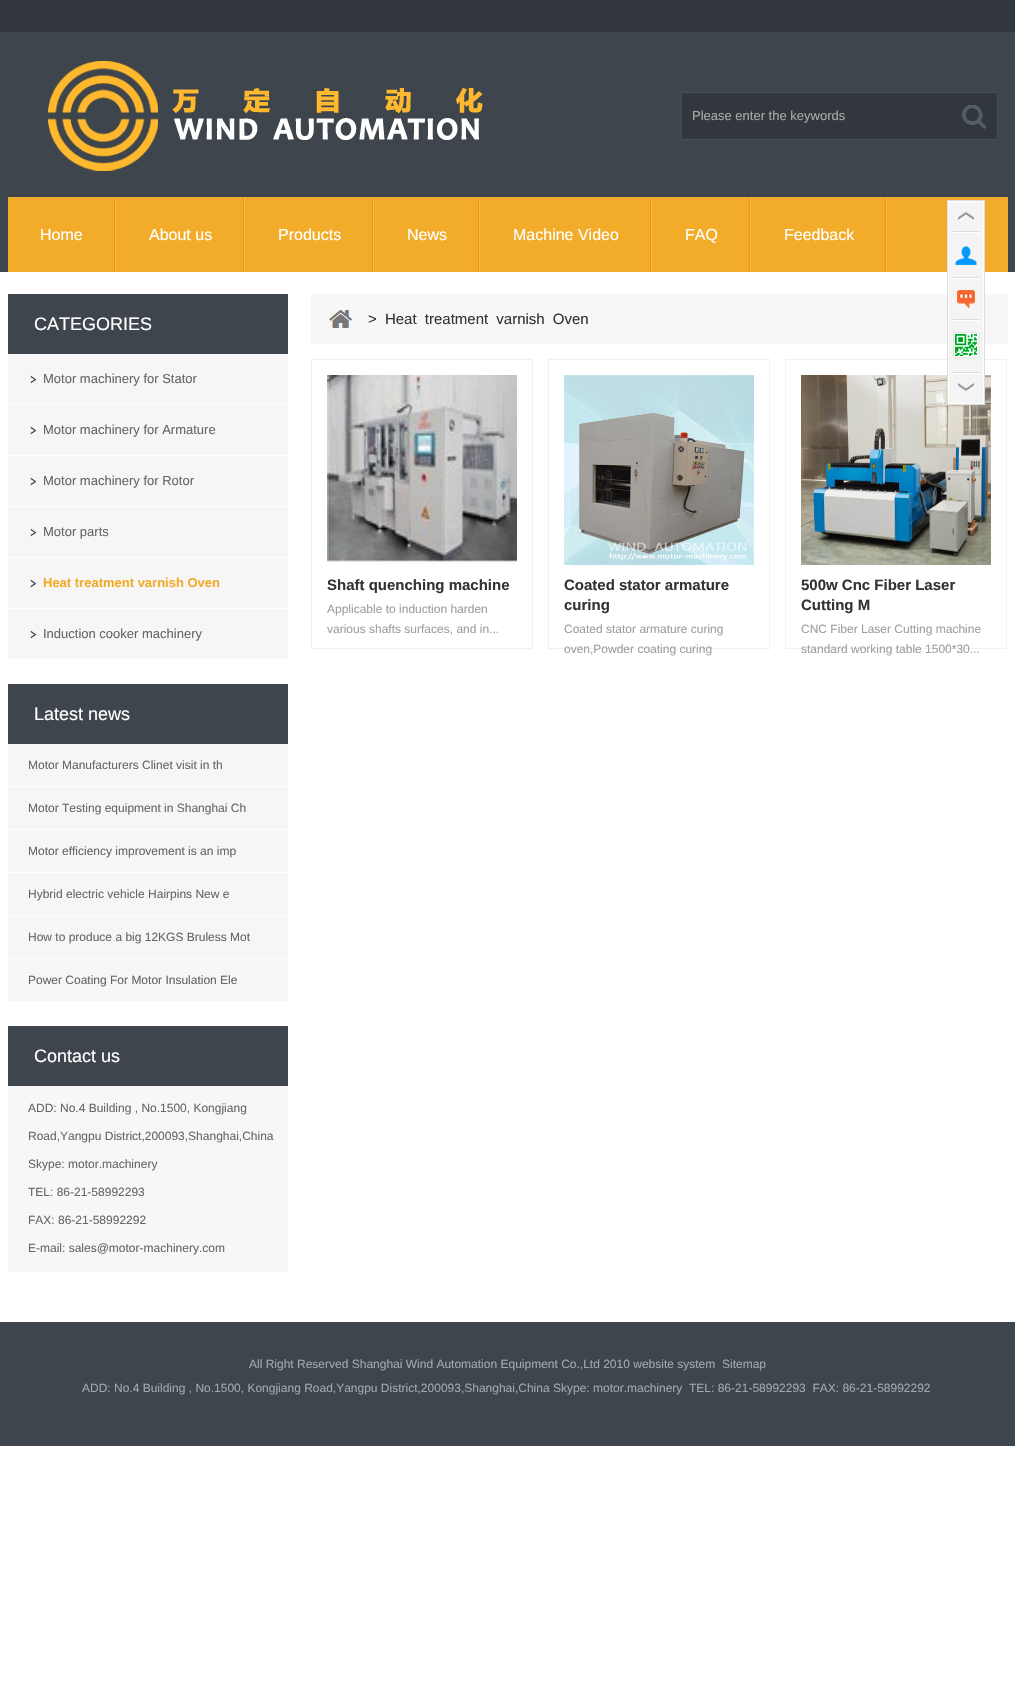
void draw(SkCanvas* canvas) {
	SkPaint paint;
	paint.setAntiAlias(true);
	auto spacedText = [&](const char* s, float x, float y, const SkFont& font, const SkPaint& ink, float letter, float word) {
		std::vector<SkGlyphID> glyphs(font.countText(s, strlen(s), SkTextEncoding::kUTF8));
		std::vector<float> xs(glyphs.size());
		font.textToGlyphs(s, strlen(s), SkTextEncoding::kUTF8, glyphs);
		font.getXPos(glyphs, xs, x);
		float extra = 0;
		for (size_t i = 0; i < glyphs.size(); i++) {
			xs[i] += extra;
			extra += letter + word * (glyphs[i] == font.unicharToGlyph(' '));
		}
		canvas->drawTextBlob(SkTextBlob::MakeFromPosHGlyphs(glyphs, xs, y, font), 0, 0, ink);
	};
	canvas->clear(0xffffffff);
	paint.setColor(0xff32373d);
	canvas->drawRect(SkRect::MakeXYWH(0, 0, 1015, 32), paint);
	paint.setColor(0xff3e454c);
	canvas->drawRect(SkRect::MakeXYWH(0, 32, 1015, 240), paint);
	canvas->drawImageRect(SkImages::DeferredFromEncodedData(SkData::MakeFromFileName("img1.png")), SkRect::MakeXYWH(48, 61, 435, 110), SkSamplingOptions());
	paint.setColor(0xff32373d);
	canvas->drawRect(SkRect::MakeXYWH(681.5, 92.5, 316, 47), paint);
	paint.setStroke(true);
	paint.setStrokeWidth(1);
	paint.setColor(0xff474f56);
	canvas->drawRect(SkRect::MakeXYWH(681.5, 92.5, 316, 47), paint);
	SkFont f1(fontMgr->matchFamilyStyle("Liberation Sans", SkFontStyle::Normal()), 13);
	f1.setSubpixel(true);
	paint.setStroke(false);
	paint.setColor(0xffa9a9a9);
	canvas->drawString("Please enter the keywords", 692, 120, f1, paint);
	canvas->drawImageRect(SkImages::DeferredFromEncodedData(SkData::MakeFromFileName("img2.png")), SkRect::MakeXYWH(956, 101, 32, 32), SkSamplingOptions());
	paint.setColor(0xfff2ac2a);
	canvas->drawRect(SkRect::MakeXYWH(8, 197, 1000, 75), paint);
	canvas->drawImageRect(SkImages::DeferredFromEncodedData(SkData::MakeFromFileName("img3.png")), SkRect::MakeXYWH(114, 197, 2, 75), SkSamplingOptions());
	SkFont f2(fontMgr->matchFamilyStyle("Liberation Sans", SkFontStyle::Normal()), 16);
	f2.setSubpixel(true);
	paint.setColor(0xffffffff);
	canvas->drawString("Home", 40, 240, f2, paint);
	canvas->drawImageRect(SkImages::DeferredFromEncodedData(SkData::MakeFromFileName("img3.png")), SkRect::MakeXYWH(243, 197, 2, 75), SkSamplingOptions());
	canvas->drawString("About us", 149, 240, f2, paint);
	canvas->drawImageRect(SkImages::DeferredFromEncodedData(SkData::MakeFromFileName("img3.png")), SkRect::MakeXYWH(372, 197, 2, 75), SkSamplingOptions());
	canvas->drawString("Products", 278, 240, f2, paint);
	canvas->drawImageRect(SkImages::DeferredFromEncodedData(SkData::MakeFromFileName("img3.png")), SkRect::MakeXYWH(478, 197, 2, 75), SkSamplingOptions());
	canvas->drawString("News", 407, 240, f2, paint);
	canvas->drawImageRect(SkImages::DeferredFromEncodedData(SkData::MakeFromFileName("img3.png")), SkRect::MakeXYWH(650, 197, 2, 75), SkSamplingOptions());
	canvas->drawString("Machine Video", 513, 240, f2, paint);
	canvas->drawImageRect(SkImages::DeferredFromEncodedData(SkData::MakeFromFileName("img3.png")), SkRect::MakeXYWH(749, 197, 2, 75), SkSamplingOptions());
	canvas->drawString("FAQ", 685, 240, f2, paint);
	canvas->drawImageRect(SkImages::DeferredFromEncodedData(SkData::MakeFromFileName("img3.png")), SkRect::MakeXYWH(885, 197, 2, 75), SkSamplingOptions());
	canvas->drawString("Feedback", 784, 240, f2, paint);
	paint.setColor(0xff3e454c);
	canvas->drawRect(SkRect::MakeXYWH(8, 294, 280, 60), paint);
	SkFont f3(fontMgr->matchFamilyStyle("Liberation Sans", SkFontStyle::Normal()), 18);
	f3.setSubpixel(true);
	paint.setColor(0xffffffff);
	canvas->drawString("CATEGORIES", 34, 330, f3, paint);
	paint.setColor(0xfff6f6f6);
	canvas->drawRect(SkRect::MakeXYWH(8, 354, 280, 50), paint);
	canvas->drawImageRect(SkImages::DeferredFromEncodedData(SkData::MakeFromFileName("img4.png")), SkRect::MakeXYWH(30, 375, 6, 9), SkSamplingOptions());
	paint.setColor(0xff666666);
	canvas->drawString("Motor machinery for Stator", 43, 383, f1, paint);
	paint.setColor(0xfff6f6f6);
	canvas->drawRect(SkRect::MakeXYWH(8, 405, 280, 50), paint);
	canvas->drawImageRect(SkImages::DeferredFromEncodedData(SkData::MakeFromFileName("img4.png")), SkRect::MakeXYWH(30, 426, 6, 9), SkSamplingOptions());
	paint.setColor(0xff666666);
	canvas->drawString("Motor machinery for Armature", 43, 434, f1, paint);
	paint.setColor(0xfff6f6f6);
	canvas->drawRect(SkRect::MakeXYWH(8, 456, 280, 50), paint);
	canvas->drawImageRect(SkImages::DeferredFromEncodedData(SkData::MakeFromFileName("img4.png")), SkRect::MakeXYWH(30, 477, 6, 9), SkSamplingOptions());
	paint.setColor(0xff666666);
	canvas->drawString("Motor machinery for Rotor", 43, 485, f1, paint);
	paint.setColor(0xfff6f6f6);
	canvas->drawRect(SkRect::MakeXYWH(8, 507, 280, 50), paint);
	canvas->drawImageRect(SkImages::DeferredFromEncodedData(SkData::MakeFromFileName("img4.png")), SkRect::MakeXYWH(30, 528, 6, 9), SkSamplingOptions());
	paint.setColor(0xff666666);
	canvas->drawString("Motor parts", 43, 536, f1, paint);
	paint.setColor(0xfff6f6f6);
	canvas->drawRect(SkRect::MakeXYWH(8, 558, 280, 50), paint);
	canvas->drawImageRect(SkImages::DeferredFromEncodedData(SkData::MakeFromFileName("img4.png")), SkRect::MakeXYWH(30, 579, 6, 9), SkSamplingOptions());
	SkFont f4(fontMgr->matchFamilyStyle("Liberation Sans", SkFontStyle::Bold()), 13);
	f4.setSubpixel(true);
	paint.setColor(0xfff2ac29);
	canvas->drawString("Heat treatment varnish Oven", 43, 587, f4, paint);
	paint.setColor(0xfff6f6f6);
	canvas->drawRect(SkRect::MakeXYWH(8, 609, 280, 50), paint);
	canvas->drawImageRect(SkImages::DeferredFromEncodedData(SkData::MakeFromFileName("img4.png")), SkRect::MakeXYWH(30, 630, 6, 9), SkSamplingOptions());
	paint.setColor(0xff666666);
	canvas->drawString("Induction cooker machinery", 43, 638, f1, paint);
	paint.setColor(0xff3e454c);
	canvas->drawRect(SkRect::MakeXYWH(8, 684, 280, 60), paint);
	paint.setColor(0xffffffff);
	canvas->drawString("Latest news", 34, 720, f3, paint);
	paint.setColor(0xfff6f6f6);
	canvas->drawRect(SkRect::MakeXYWH(8, 744, 280, 42), paint);
	SkFont f5(fontMgr->matchFamilyStyle("Liberation Sans", SkFontStyle::Normal()), 12);
	f5.setSubpixel(true);
	paint.setColor(0xff666666);
	canvas->drawString("Motor Manufacturers Clinet visit in th", 28, 769, f5, paint);
	paint.setColor(0xfff6f6f6);
	canvas->drawRect(SkRect::MakeXYWH(8, 787, 280, 42), paint);
	paint.setColor(0xff666666);
	canvas->drawString("Motor Testing equipment in Shanghai Ch", 28, 812, f5, paint);
	paint.setColor(0xfff6f6f6);
	canvas->drawRect(SkRect::MakeXYWH(8, 830, 280, 42), paint);
	paint.setColor(0xff666666);
	canvas->drawString("Motor efficiency improvement is an imp", 28, 855, f5, paint);
	paint.setColor(0xfff6f6f6);
	canvas->drawRect(SkRect::MakeXYWH(8, 873, 280, 42), paint);
	paint.setColor(0xff666666);
	canvas->drawString("Hybrid electric vehicle Hairpins New e", 28, 898, f5, paint);
	paint.setColor(0xfff6f6f6);
	canvas->drawRect(SkRect::MakeXYWH(8, 916, 280, 42), paint);
	paint.setColor(0xff666666);
	canvas->drawString("How to produce a big 12KGS Bruless Mot", 28, 941, f5, paint);
	paint.setColor(0xfff6f6f6);
	canvas->drawRect(SkRect::MakeXYWH(8, 959, 280, 42), paint);
	paint.setColor(0xff666666);
	canvas->drawString("Power Coating For Motor Insulation Ele", 28, 984, f5, paint);
	paint.setColor(0xff3e454c);
	canvas->drawRect(SkRect::MakeXYWH(8, 1026, 280, 60), paint);
	paint.setColor(0xffffffff);
	canvas->drawString("Contact us", 34, 1062, f3, paint);
	paint.setColor(0xfff7f7f7);
	canvas->drawRect(SkRect::MakeXYWH(8, 1086, 280, 186), paint);
	paint.setColor(0xff666666);
	canvas->drawString("ADD: No.4 Building , No.1500, Kongjiang", 28, 1112, f5, paint);
	canvas->drawString("Road,Yangpu District,200093,Shanghai,China", 28, 1140, f5, paint);
	canvas->drawString("Skype: motor.machinery", 28, 1168, f5, paint);
	canvas->drawString("TEL: 86-21-58992293", 28, 1196, f5, paint);
	canvas->drawString("FAX: 86-21-58992292", 28, 1224, f5, paint);
	canvas->drawString("E-mail: sales@motor-machinery.com", 28, 1252, f5, paint);
	paint.setColor(0xfff7f7f7);
	canvas->drawRect(SkRect::MakeXYWH(311, 294, 697, 50), paint);
	canvas->drawImageRect(SkImages::DeferredFromEncodedData(SkData::MakeFromFileName("img5.png")), SkRect::MakeXYWH(329, 310, 23, 18), SkSamplingOptions());
	SkFont f6(fontMgr->matchFamilyStyle("Liberation Sans", SkFontStyle::Normal()), 15);
	f6.setSubpixel(true);
	paint.setColor(0xff333333);
	spacedText("> Heat treatment varnish Oven", 368, 324, f6, paint, 0, 4);
	paint.setStroke(true);
	paint.setColor(0xfff0f0f0);
	canvas->drawRect(SkRect::MakeXYWH(311.5, 359.5, 221, 289), paint);
	canvas->drawImageRect(SkImages::DeferredFromEncodedData(SkData::MakeFromFileName("img6.png")), SkRect::MakeXYWH(327, 375, 190, 190), SkSamplingOptions());
	SkFont f7(fontMgr->matchFamilyStyle("Liberation Sans", SkFontStyle::Bold()), 15);
	f7.setSubpixel(true);
	paint.setStroke(false);
	paint.setColor(0xff333333);
	canvas->drawString("Shaft quenching machine", 327, 590, f7, paint);
	paint.setColor(0xff9e9e9e);
	canvas->drawString("Applicable to induction harden", 327, 613, f5, paint);
	canvas->drawString("various shafts surfaces, and in...", 327, 633, f5, paint);
	paint.setStroke(true);
	paint.setColor(0xfff0f0f0);
	canvas->drawRect(SkRect::MakeXYWH(548.5, 359.5, 221, 289), paint);
	canvas->drawImageRect(SkImages::DeferredFromEncodedData(SkData::MakeFromFileName("img7.png")), SkRect::MakeXYWH(564, 375, 190, 190), SkSamplingOptions());
	paint.setStroke(false);
	paint.setColor(0xff333333);
	canvas->drawString("Coated stator armature", 564, 590, f7, paint);
	canvas->drawString("curing", 564, 610, f7, paint);
	paint.setColor(0xff9e9e9e);
	canvas->drawString("Coated stator armature curing", 564, 633, f5, paint);
	canvas->drawString("oven,Powder coating curing", 564, 653, f5, paint);
	paint.setStroke(true);
	paint.setColor(0xfff0f0f0);
	canvas->drawRect(SkRect::MakeXYWH(785.5, 359.5, 221, 289), paint);
	canvas->drawImageRect(SkImages::DeferredFromEncodedData(SkData::MakeFromFileName("img8.png")), SkRect::MakeXYWH(801, 375, 190, 190), SkSamplingOptions());
	paint.setStroke(false);
	paint.setColor(0xff333333);
	canvas->drawString("500w Cnc Fiber Laser", 801, 590, f7, paint);
	canvas->drawString("Cutting M", 801, 610, f7, paint);
	paint.setColor(0xff9e9e9e);
	canvas->drawString("CNC Fiber Laser Cutting machine", 801, 633, f5, paint);
	canvas->drawString("standard working table 1500*30...", 801, 653, f5, paint);
	paint.setColor(0xff3e454c);
	canvas->drawRect(SkRect::MakeXYWH(0, 1322, 1015, 124), paint);
	paint.setColor(0xffffffff);
	canvas->drawRect(SkRect::MakeXYWH(948, 201, 36, 203), paint);
	canvas->drawImageRect(SkImages::DeferredFromEncodedData(SkData::MakeFromFileName("img9.png")), SkRect::MakeXYWH(948, 202, 35, 201), SkSamplingOptions());
	paint.setStroke(true);
	paint.setColor(0xffdddddd);
	canvas->drawRect(SkRect::MakeXYWH(947.5, 200.5, 37, 204), paint);
	paint.setStroke(false);
	paint.setColor(0xffa0a7ae);
	canvas->drawString("All Right Reserved Shanghai Wind Automation Equipment Co.,Ltd 2010 website system", 249, 1368, f5, paint);
	canvas->drawString("Sitemap", 722, 1368, f5, paint);
	canvas->drawString("ADD: No.4 Building , No.1500, Kongjiang Road,Yangpu District,200093,Shanghai,China Skype: motor.machinery  TEL: 86-21-58992293  FAX: 86-21-58992292", 82, 1392, f5, paint);
}
